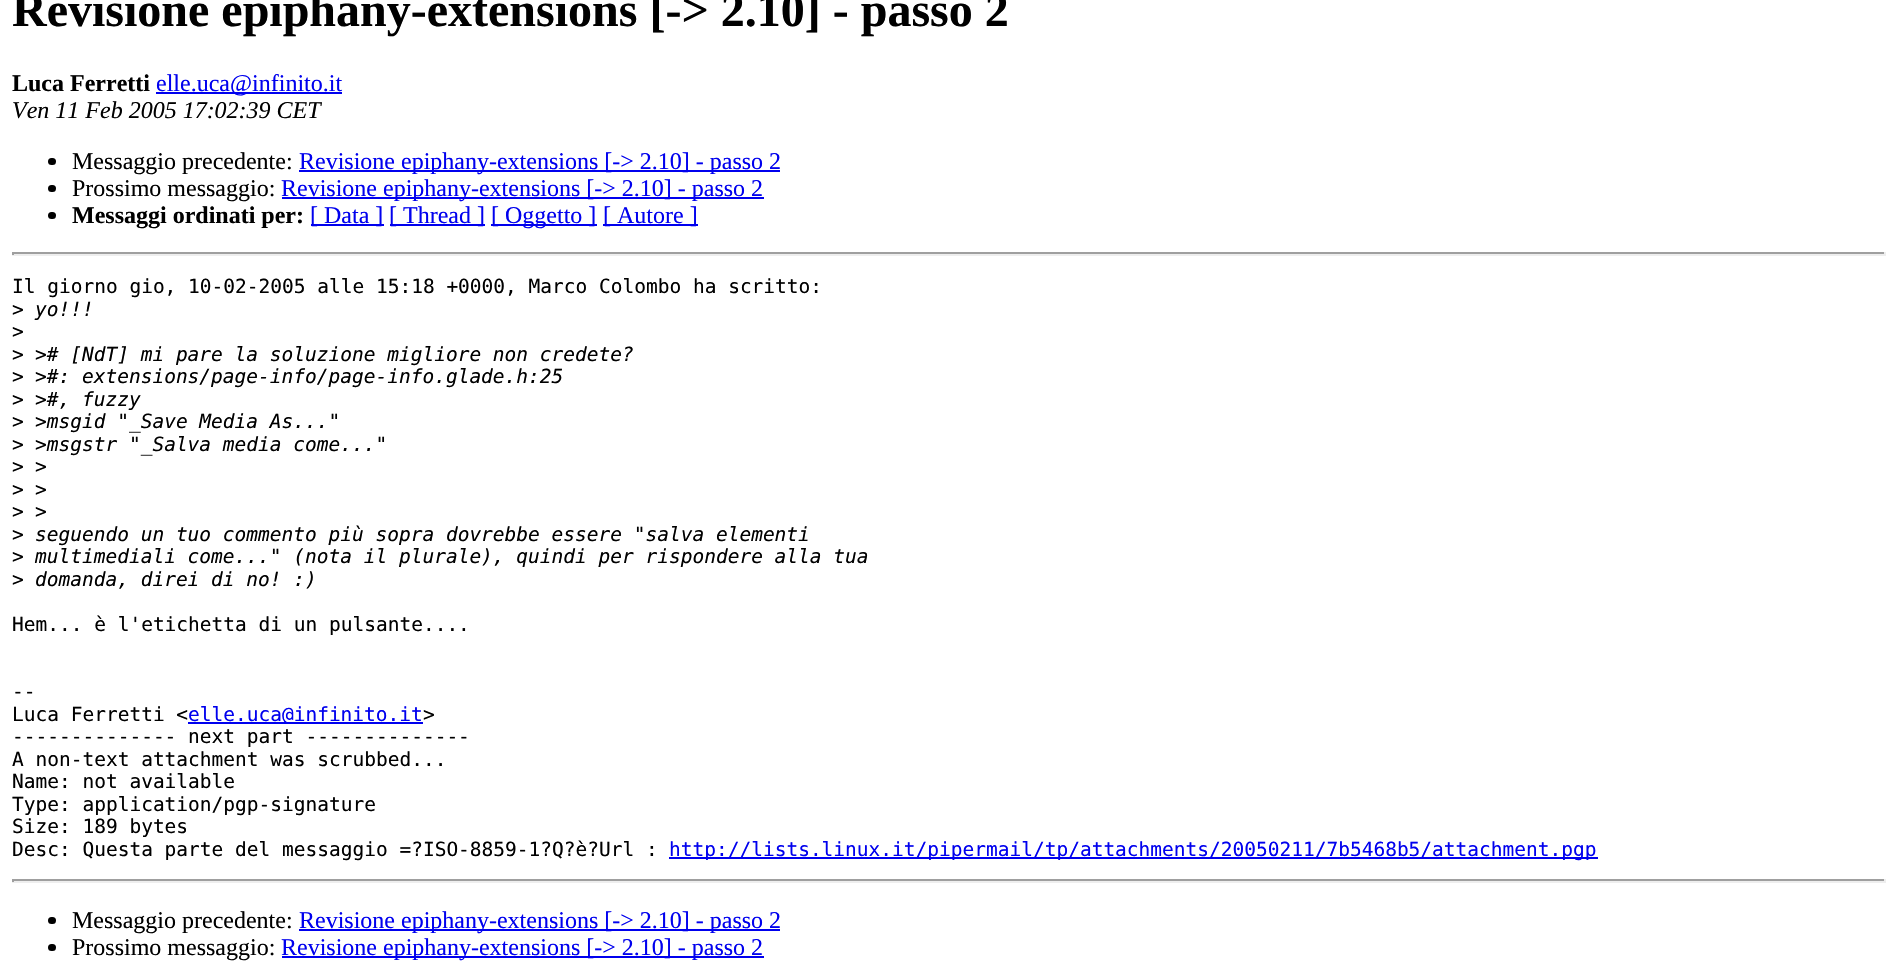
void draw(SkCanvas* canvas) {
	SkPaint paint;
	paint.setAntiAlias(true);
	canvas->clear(0xffffffff);
	SkFont f1(fontMgr->matchFamilyStyle("Liberation Serif", SkFontStyle::Bold()), 48);
	f1.setSubpixel(true);
	paint.setColor(0xff000000);
	canvas->drawString("Revisione epiphany-extensions [-> 2.10] - passo 2", 12, 26, f1, paint);
	SkFont f2(fontMgr->matchFamilyStyle("Liberation Serif", SkFontStyle::Bold()), 24);
	f2.setSubpixel(true);
	canvas->drawString("Luca Ferretti", 12, 91, f2, paint);
	paint.setColor(0xff0000ee);
	canvas->drawRect(SkRect::MakeXYWH(156, 92, 186, 2), paint);
	SkFont f3(fontMgr->matchFamilyStyle("Liberation Serif", SkFontStyle::Normal()), 24);
	f3.setSubpixel(true);
	canvas->drawString("elle.uca@infinito.it", 156, 91, f3, paint);
	SkFont f4(fontMgr->matchFamilyStyle("Liberation Serif", SkFontStyle::Italic()), 24);
	f4.setSubpixel(true);
	paint.setColor(0xff000000);
	canvas->drawString("Ven 11 Feb 2005 17:02:39 CET", 12, 118, f4, paint);
	canvas->drawRoundRect(SkRect::MakeXYWH(48, 158, 8, 7), 3.5, 3.5, paint);
	canvas->drawString("Messaggio precedente:", 72, 169, f3, paint);
	paint.setColor(0xff0000ee);
	canvas->drawRect(SkRect::MakeXYWH(299, 170, 481, 2), paint);
	canvas->drawString("Revisione epiphany-extensions [-> 2.10] - passo 2", 299, 169, f3, paint);
	paint.setColor(0xff000000);
	canvas->drawRoundRect(SkRect::MakeXYWH(48, 185, 8, 7), 3.5, 3.5, paint);
	canvas->drawString("Prossimo messaggio:", 72, 196, f3, paint);
	paint.setColor(0xff0000ee);
	canvas->drawRect(SkRect::MakeXYWH(282, 197, 482, 2), paint);
	canvas->drawString("Revisione epiphany-extensions [-> 2.10] - passo 2", 281, 196, f3, paint);
	paint.setColor(0xff000000);
	canvas->drawRoundRect(SkRect::MakeXYWH(48, 212, 8, 7), 3.5, 3.5, paint);
	canvas->drawString("Messaggi ordinati per:", 72, 223, f2, paint);
	paint.setColor(0xff0000ee);
	canvas->drawRect(SkRect::MakeXYWH(311, 224, 73, 2), paint);
	canvas->drawString("[ Data ]", 310, 223, f3, paint);
	canvas->drawRect(SkRect::MakeXYWH(390, 224, 95, 2), paint);
	canvas->drawString("[ Thread ]", 389, 223, f3, paint);
	canvas->drawRect(SkRect::MakeXYWH(491, 224, 106, 2), paint);
	canvas->drawString("[ Oggetto ]", 491, 223, f3, paint);
	canvas->drawRect(SkRect::MakeXYWH(603, 224, 95, 2), paint);
	canvas->drawString("[ Autore ]", 603, 223, f3, paint);
	paint.setColor(0xff9f9f9f);
	canvas->drawRect(SkRect::MakeXYWH(12, 252, 1874, 2), paint);
	paint.setColor(0xffeeeeee);
	canvas->drawRect(SkRect::MakeXYWH(1884, 252, 2, 3), paint);
	canvas->drawRect(SkRect::MakeXYWH(12, 254, 1874, 2), paint);
	paint.setColor(0xff9f9f9f);
	canvas->drawRect(SkRect::MakeXYWH(12, 252, 2, 3), paint);
	SkFont f5(fontMgr->matchFamilyStyle("DejaVu Sans Mono", SkFontStyle::Normal()), 19.5);
	f5.setSubpixel(true);
	paint.setColor(0xff000000);
	canvas->drawString("Il giorno gio, 10-02-2005 alle 15:18 +0000, Marco Colombo ha scritto:", 12, 293, f5, paint);
	canvas->drawString(">", 12, 316, f5, paint);
	SkFont f6(fontMgr->matchFamilyStyle("DejaVu Sans Mono", SkFontStyle::Italic()), 19.5);
	f6.setSubpixel(true);
	canvas->drawString("yo!!!", 35, 316, f6, paint);
	canvas->drawString(">", 12, 338, f5, paint);
	canvas->drawString(">", 12, 361, f5, paint);
	canvas->drawString("># [NdT] mi pare la soluzione migliore non credete?", 35, 361, f6, paint);
	canvas->drawString(">", 12, 383, f5, paint);
	canvas->drawString(">#: extensions/page-info/page-info.glade.h:25", 35, 383, f6, paint);
	canvas->drawString(">", 12, 406, f5, paint);
	canvas->drawString(">#, fuzzy", 35, 406, f6, paint);
	canvas->drawString(">", 12, 428, f5, paint);
	canvas->drawString(">msgid \"_Save Media As...\"", 35, 428, f6, paint);
	canvas->drawString(">", 12, 451, f5, paint);
	canvas->drawString(">msgstr \"_Salva media come...\"", 35, 451, f6, paint);
	canvas->drawString(">", 12, 473, f5, paint);
	canvas->drawString(">", 35, 473, f6, paint);
	canvas->drawString(">", 12, 496, f5, paint);
	canvas->drawString(">", 35, 496, f6, paint);
	canvas->drawString(">", 12, 518, f5, paint);
	canvas->drawString(">", 35, 518, f6, paint);
	canvas->drawString(">", 12, 541, f5, paint);
	canvas->drawString("seguendo un tuo commento più sopra dovrebbe essere \"salva elementi", 35, 541, f6, paint);
	canvas->drawString(">", 12, 563, f5, paint);
	canvas->drawString("multimediali come...\" (nota il plurale), quindi per rispondere alla tua", 35, 563, f6, paint);
	canvas->drawString(">", 12, 586, f5, paint);
	canvas->drawString("domanda, direi di no! :)", 35, 586, f6, paint);
	canvas->drawString("Hem... è l'etichetta di un pulsante....", 12, 631, f5, paint);
	canvas->drawString("--", 12, 698, f5, paint);
	canvas->drawString("Luca Ferretti <", 12, 721, f5, paint);
	paint.setColor(0xff0000ee);
	canvas->drawRect(SkRect::MakeXYWH(188, 722, 235, 2), paint);
	canvas->drawString("elle.uca@infinito.it", 188, 721, f5, paint);
	paint.setColor(0xff000000);
	canvas->drawString(">", 423, 721, f5, paint);
	canvas->drawString("-------------- next part --------------", 12, 743, f5, paint);
	canvas->drawString("A non-text attachment was scrubbed...", 12, 766, f5, paint);
	canvas->drawString("Name: not available", 12, 788, f5, paint);
	canvas->drawString("Type: application/pgp-signature", 12, 811, f5, paint);
	canvas->drawString("Size: 189 bytes", 12, 833, f5, paint);
	canvas->drawString("Desc: Questa parte del messaggio =?ISO-8859-1?Q?è?Url :", 12, 856, f5, paint);
	paint.setColor(0xff0000ee);
	canvas->drawRect(SkRect::MakeXYWH(669, 857, 929, 2), paint);
	canvas->drawString("http://lists.linux.it/pipermail/tp/attachments/20050211/7b5468b5/attachment.pgp", 669, 856, f5, paint);
	paint.setColor(0xff9f9f9f);
	canvas->drawRect(SkRect::MakeXYWH(12, 879, 1874, 2), paint);
	paint.setColor(0xffeeeeee);
	canvas->drawRect(SkRect::MakeXYWH(1884, 879, 2, 3), paint);
	canvas->drawRect(SkRect::MakeXYWH(12, 881, 1874, 2), paint);
	paint.setColor(0xff9f9f9f);
	canvas->drawRect(SkRect::MakeXYWH(12, 879, 2, 3), paint);
	paint.setColor(0xff000000);
	canvas->drawRoundRect(SkRect::MakeXYWH(48, 917, 8, 7), 3.5, 3.5, paint);
	canvas->drawString("Messaggio precedente:", 72, 928, f3, paint);
	paint.setColor(0xff0000ee);
	canvas->drawRect(SkRect::MakeXYWH(299, 929, 481, 2), paint);
	canvas->drawString("Revisione epiphany-extensions [-> 2.10] - passo 2", 299, 928, f3, paint);
	paint.setColor(0xff000000);
	canvas->drawRoundRect(SkRect::MakeXYWH(48, 944, 8, 7), 3.5, 3.5, paint);
	canvas->drawString("Prossimo messaggio:", 72, 955, f3, paint);
	paint.setColor(0xff0000ee);
	canvas->drawRect(SkRect::MakeXYWH(282, 956, 482, 2), paint);
	canvas->drawString("Revisione epiphany-extensions [-> 2.10] - passo 2", 281, 955, f3, paint);
}
